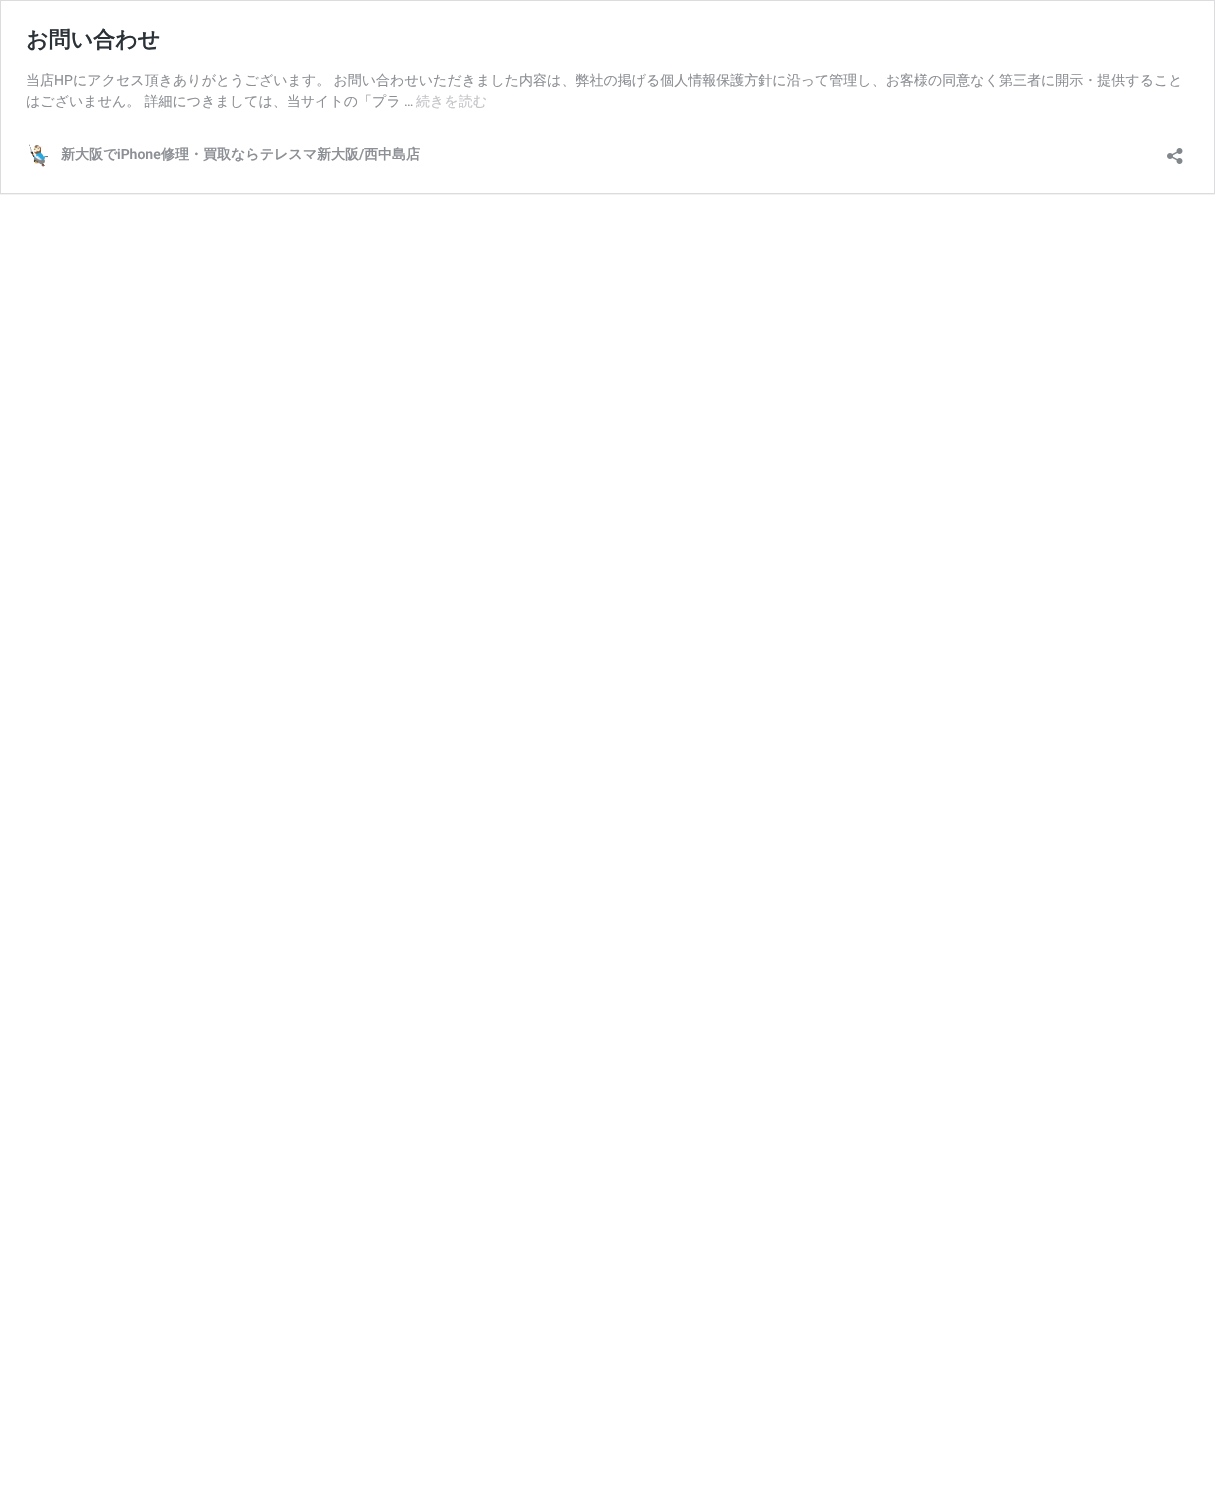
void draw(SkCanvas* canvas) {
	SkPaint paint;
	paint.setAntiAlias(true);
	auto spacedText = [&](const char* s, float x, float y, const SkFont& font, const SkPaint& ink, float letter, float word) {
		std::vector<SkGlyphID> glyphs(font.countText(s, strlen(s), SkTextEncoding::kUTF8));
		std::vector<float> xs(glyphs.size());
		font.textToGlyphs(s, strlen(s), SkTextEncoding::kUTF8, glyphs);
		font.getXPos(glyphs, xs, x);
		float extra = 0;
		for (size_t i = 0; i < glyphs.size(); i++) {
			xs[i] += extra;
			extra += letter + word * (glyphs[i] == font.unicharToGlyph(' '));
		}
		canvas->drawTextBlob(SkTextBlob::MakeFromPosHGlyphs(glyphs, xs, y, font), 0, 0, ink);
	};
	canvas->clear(0xffffffff);
	canvas->save();
	canvas->clipRect(SkRect::MakeXYWH(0, 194, 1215, 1));
	paint.setColor(0x0d000000);
	paint.setMaskFilter(SkMaskFilter::MakeBlur(kNormal_SkBlurStyle, 0.5));
	canvas->drawRect(SkRect::MakeXYWH(0, 1, 1215, 194), paint);
	paint.setMaskFilter(nullptr);
	canvas->restore();
	paint.setStroke(true);
	paint.setStrokeWidth(1);
	paint.setColor(0xffdcdcde);
	canvas->drawRect(SkRect::MakeXYWH(0.5, 0.5, 1214, 193), paint);
	SkFont f1(fontMgr->matchFamilyStyle("WenQuanYi Zen Hei", SkFontStyle::Bold()), 22);
	f1.setSubpixel(true);
	paint.setStroke(false);
	paint.setColor(0xff2c3338);
	canvas->drawString("お問い合わせ", 26, 47, f1, paint);
	SkFont f2(fontMgr->matchFamilyStyle("WenQuanYi Zen Hei", SkFontStyle(500, SkFontStyle::kNormal_Width, SkFontStyle::kUpright_Slant)), 14);
	f2.setSubpixel(true);
	paint.setColor(0xff8c8f94);
	canvas->drawString("当店", 26, 85, f2, paint);
	SkFont f3(fontMgr->matchFamilyStyle("Roboto", SkFontStyle::Normal()), 14);
	f3.setSubpixel(true);
	canvas->drawString("HP", 54, 85, f3, paint);
	spacedText("にアクセス頂きありがとうございます。 お問い合わせいただきました内容は、弊社の掲げる個人情報保護方針に沿って管理し、お客様の同意なく第三者に開示・提供すること", 73, 85, f2, paint, 0, -1);
	canvas->drawString("はございません。 詳細につきましては、当サイトの「プラ", 26, 106, f2, paint);
	canvas->drawString("…", 404, 106, f3, paint);
	paint.setColor(0xffc3c4c7);
	canvas->drawString("続きを読む", 416, 106, f2, paint);
	canvas->drawImageRect(SkImages::DeferredFromEncodedData(SkData::MakeFromFileName("img1.png")), SkRect::MakeXYWH(29, 144, 19, 23), SkSamplingOptions());
	SkFont f4(fontMgr->matchFamilyStyle("WenQuanYi Zen Hei", SkFontStyle::Bold()), 14);
	f4.setSubpixel(true);
	paint.setColor(0xff8c8f94);
	canvas->drawString("新大阪で", 61, 159, f4, paint);
	SkFont f5(fontMgr->matchFamilyStyle("Roboto", SkFontStyle(600, SkFontStyle::kNormal_Width, SkFontStyle::kUpright_Slant)), 14);
	f5.setSubpixel(true);
	canvas->drawString("iPhone", 117, 159, f5, paint);
	canvas->drawString("修理・買取ならテレスマ新大阪", 161, 159, f4, paint);
	canvas->drawString("/", 359, 159, f5, paint);
	canvas->drawString("西中島店", 364, 159, f4, paint);
	canvas->drawImageRect(SkImages::DeferredFromEncodedData(SkData::MakeFromFileName("img2.png")), SkRect::MakeXYWH(1167, 148, 16, 16), SkSamplingOptions());
}
